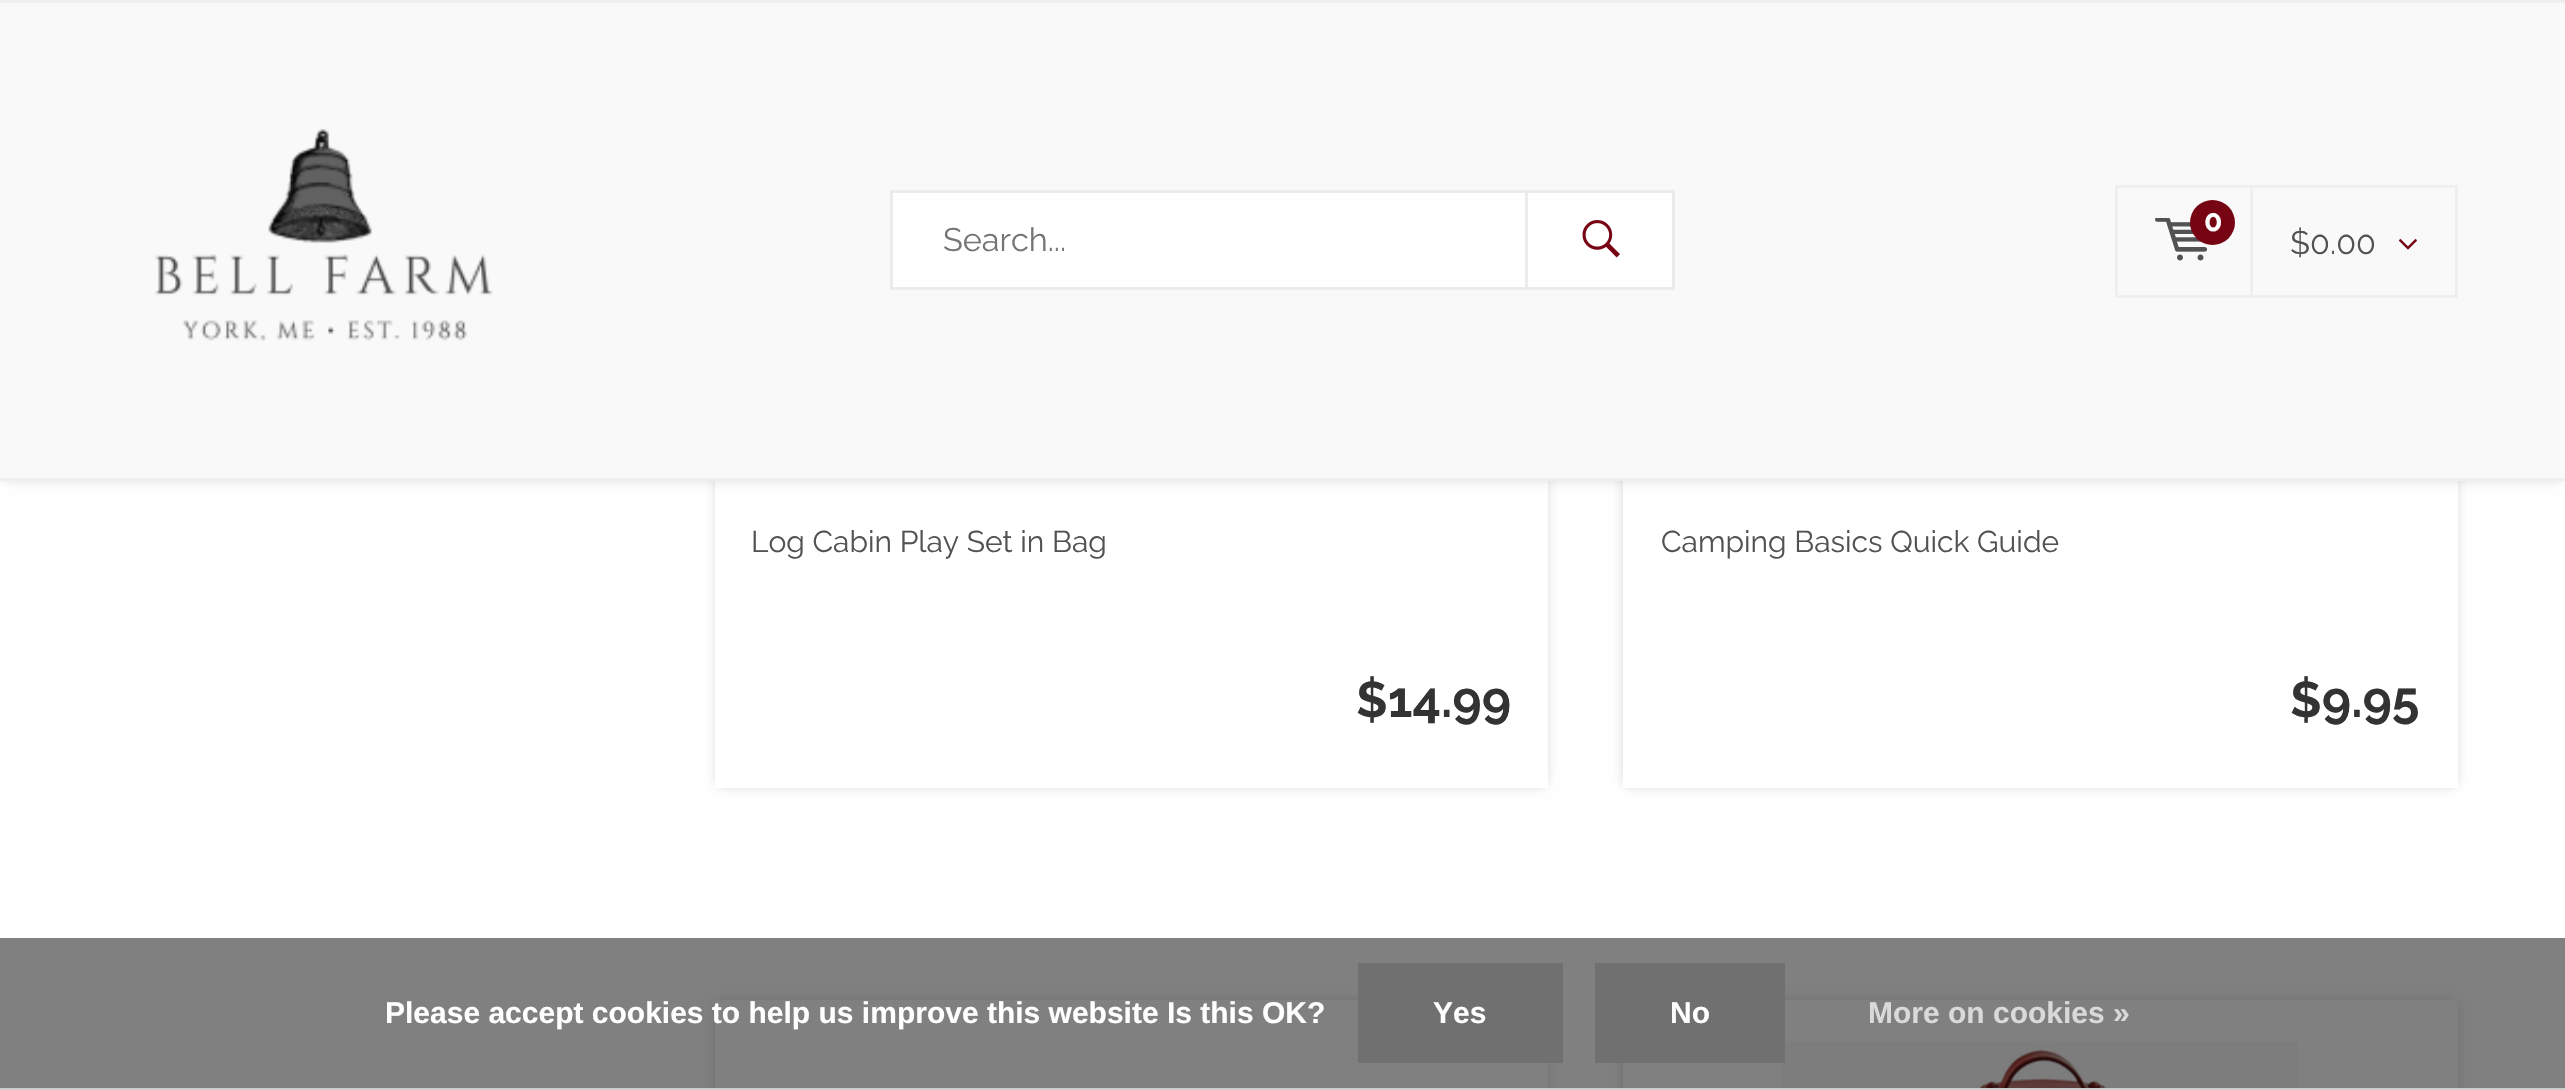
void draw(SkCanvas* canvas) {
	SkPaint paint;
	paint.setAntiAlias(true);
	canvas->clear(0xffffffff);
	paint.setColor(0xff808080);
	canvas->drawRect(SkRect::MakeXYWH(0, 938, 2565, 150), paint);
	paint.setColor(0x33000000);
	paint.setMaskFilter(SkMaskFilter::MakeBlur(kNormal_SkBlurStyle, 6));
	canvas->drawRect(SkRect::MakeXYWH(718, -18, 827, 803), paint);
	paint.setMaskFilter(nullptr);
	paint.setColor(0xffffffff);
	canvas->drawRect(SkRect::MakeXYWH(715, 481, 833, 307), paint);
	paint.setColor(0x33000000);
	paint.setMaskFilter(SkMaskFilter::MakeBlur(kNormal_SkBlurStyle, 6));
	canvas->drawRect(SkRect::MakeXYWH(1625, -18, 830, 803), paint);
	paint.setMaskFilter(nullptr);
	paint.setColor(0xffffffff);
	canvas->drawRect(SkRect::MakeXYWH(1623, 481, 835, 307), paint);
	paint.setColor(0x33000000);
	paint.setMaskFilter(SkMaskFilter::MakeBlur(kNormal_SkBlurStyle, 6));
	canvas->drawRect(SkRect::MakeXYWH(3, 3, 2560, 475), paint);
	paint.setMaskFilter(nullptr);
	paint.setColor(0xfff9f9f9);
	canvas->drawRect(SkRect::MakeXYWH(0, 3, 2565, 475), paint);
	paint.setColor(0xffefefef);
	canvas->drawRect(SkRect::MakeXYWH(0, 0, 2565, 3), paint);
	canvas->drawRect(SkRect::MakeXYWH(0, 478, 2565, 3), paint);
	canvas->drawImageRect(SkImages::DeferredFromEncodedData(SkData::MakeFromFileName("img1.png")), SkRect::MakeXYWH(154, 129, 339, 212), SkSamplingOptions());
	paint.setColor(0xffffffff);
	canvas->drawRect(SkRect::MakeXYWH(891.5, 191.5, 782, 97), paint);
	paint.setStroke(true);
	paint.setStrokeWidth(3);
	paint.setColor(0xffebebeb);
	canvas->drawRect(SkRect::MakeXYWH(891.5, 191.5, 782, 97), paint);
	SkFont f1(fontMgr->matchFamilyStyle("Raleway", SkFontStyle::Normal()), 32.5);
	f1.setSubpixel(true);
	paint.setStroke(false);
	paint.setColor(0xff757575);
	canvas->drawString("Search...", 943, 251, f1, paint);
	paint.setColor(0xffebebeb);
	canvas->drawRect(SkRect::MakeXYWH(1525, 190, 3, 100), paint);
	canvas->drawImageRect(SkImages::DeferredFromEncodedData(SkData::MakeFromFileName("img2.png")), SkRect::MakeXYWH(1582, 220, 38, 38), SkSamplingOptions());
	paint.setStroke(true);
	paint.setColor(0xffefefef);
	canvas->drawRect(SkRect::MakeXYWH(2116.5, 186.5, 135, 110), paint);
	canvas->drawImageRect(SkImages::DeferredFromEncodedData(SkData::MakeFromFileName("img3.png")), SkRect::MakeXYWH(2155, 218, 53, 43), SkSamplingOptions());
	paint.setStroke(false);
	paint.setColor(0xff760412);
	canvas->drawCircle(2212.5, 222.5, 22.5, paint);
	SkFont f2(fontMgr->matchFamilyStyle("Raleway", SkFontStyle::Bold()), 30);
	f2.setSubpixel(true);
	paint.setColor(0xffffffff);
	canvas->drawString("0", 2204, 231, f2, paint);
	paint.setColor(0xffefefef);
	canvas->drawRect(SkRect::MakeXYWH(2253, 185, 205, 3), paint);
	canvas->drawRect(SkRect::MakeXYWH(2455, 185, 3, 113), paint);
	canvas->drawRect(SkRect::MakeXYWH(2253, 295, 205, 3), paint);
	paint.setColor(0xff525252);
	canvas->drawString("$0.00", 2290, 254, f1, paint);
	canvas->drawImageRect(SkImages::DeferredFromEncodedData(SkData::MakeFromFileName("img4.png")), SkRect::MakeXYWH(2398, 239, 19, 11), SkSamplingOptions());
	SkFont f3(fontMgr->matchFamilyStyle("Raleway", SkFontStyle::Normal()), 30);
	f3.setSubpixel(true);
	canvas->drawString("Log Cabin Play Set in Bag", 751, 552, f3, paint);
	SkFont f4(fontMgr->matchFamilyStyle("Raleway", SkFontStyle::Bold()), 50);
	f4.setSubpixel(true);
	paint.setColor(0xff333333);
	canvas->drawString("$14.99", 1356, 717, f4, paint);
	paint.setColor(0xff525252);
	canvas->drawString("Camping Basics Quick Guide", 1661, 552, f3, paint);
	paint.setColor(0xff333333);
	canvas->drawString("$9.95", 2290, 717, f4, paint);
	paint.setColor(0x33000000);
	paint.setMaskFilter(SkMaskFilter::MakeBlur(kNormal_SkBlurStyle, 6));
	canvas->drawRect(SkRect::MakeXYWH(718, 1003, 827, 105), paint);
	paint.setMaskFilter(nullptr);
	paint.setColor(0xff808080);
	canvas->drawRect(SkRect::MakeXYWH(715, 1000, 833, 88), paint);
	paint.setColor(0x33000000);
	paint.setMaskFilter(SkMaskFilter::MakeBlur(kNormal_SkBlurStyle, 6));
	canvas->drawRect(SkRect::MakeXYWH(1625, 1003, 830, 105), paint);
	paint.setMaskFilter(nullptr);
	paint.setColor(0xff808080);
	canvas->drawRect(SkRect::MakeXYWH(1623, 1000, 835, 88), paint);
	canvas->drawImageRect(SkImages::DeferredFromEncodedData(SkData::MakeFromFileName("img5.png")), SkRect::MakeXYWH(1782, 1042, 516, 46), SkSamplingOptions());
	paint.setColor(0xffcccccc);
	canvas->drawRect(SkRect::MakeXYWH(0, 1088, 2565, 2), paint);
	SkFont f5(fontMgr->matchFamilyStyle("Liberation Sans", SkFontStyle::Bold()), 30);
	f5.setSubpixel(true);
	paint.setColor(0xffffffff);
	canvas->drawString("Please accept cookies to help us improve this website Is this OK?", 385, 1023, f5, paint);
	paint.setColor(0xff707070);
	canvas->drawRect(SkRect::MakeXYWH(1358, 963, 205, 100), paint);
	paint.setColor(0xffffffff);
	canvas->drawString("Yes", 1433, 1023, f5, paint);
	paint.setColor(0xff707070);
	canvas->drawRect(SkRect::MakeXYWH(1595, 963, 190, 100), paint);
	paint.setColor(0xffffffff);
	canvas->drawString("No", 1670, 1023, f5, paint);
	paint.setColor(0xffd9d9d9);
	canvas->drawString("More on cookies »", 1868, 1023, f5, paint);
}
